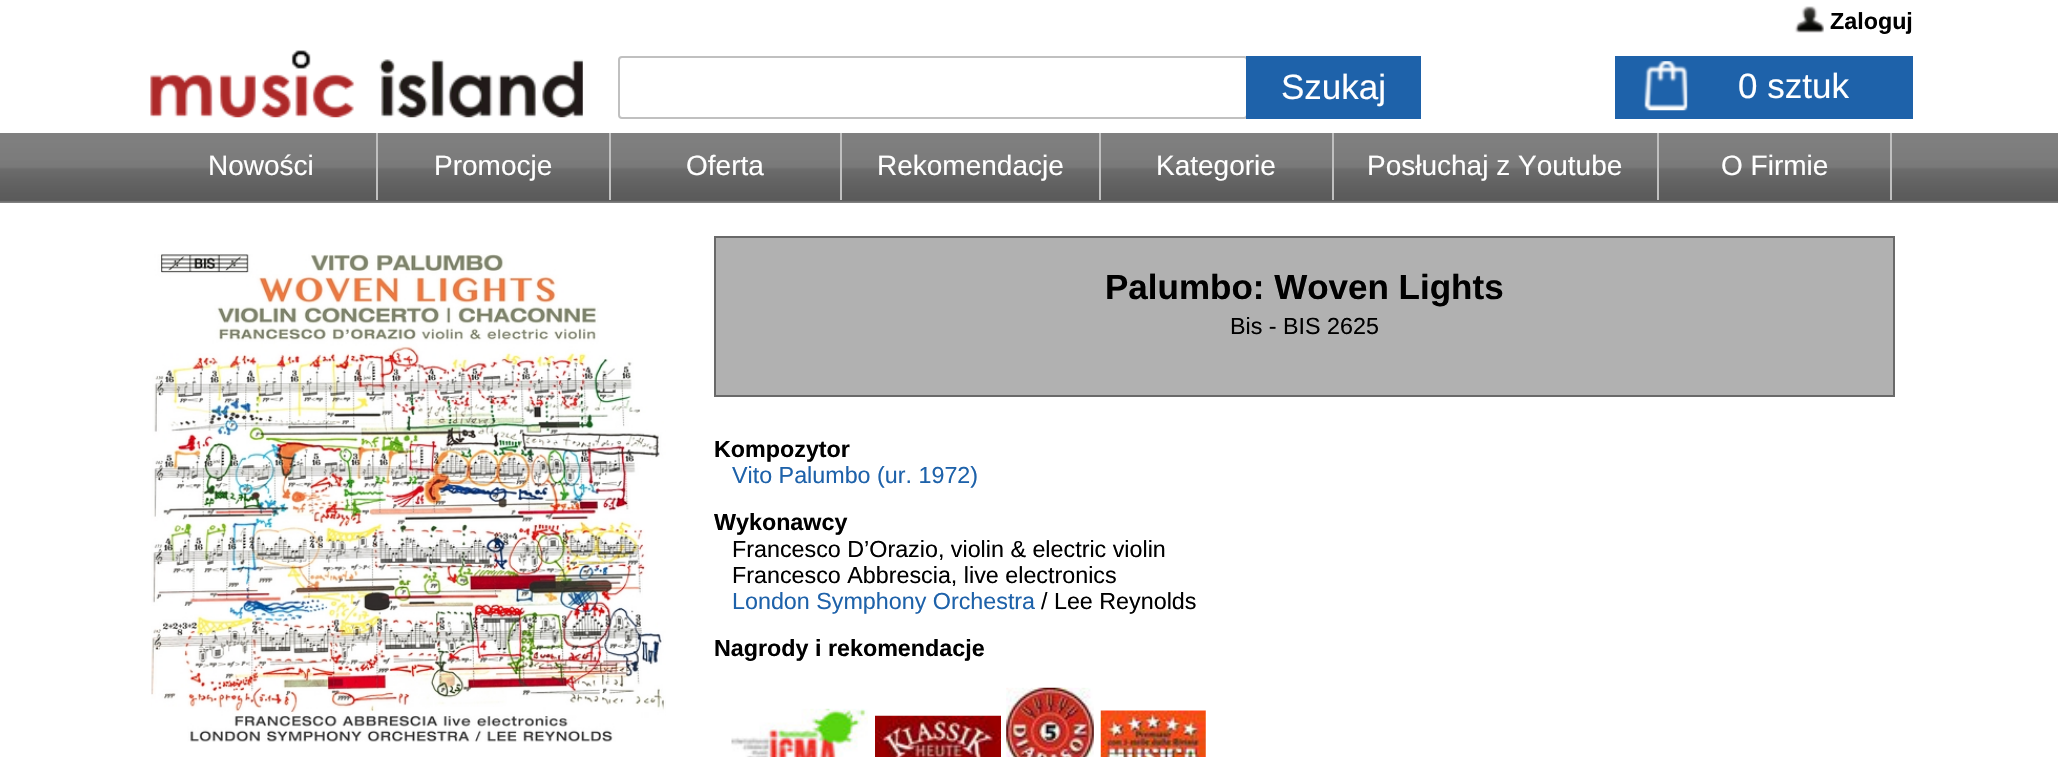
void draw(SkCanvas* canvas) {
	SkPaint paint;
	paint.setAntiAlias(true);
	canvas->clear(0xffffffff);
	canvas->drawImageRect(SkImages::DeferredFromEncodedData(SkData::MakeFromFileName("img1.png")), SkRect::MakeXYWH(1794, 6, 30, 27), SkSamplingOptions());
	SkFont f1(fontMgr->matchFamilyStyle("Liberation Sans", SkFontStyle::Bold()), 23.3);
	f1.setSubpixel(true);
	paint.setColor(0xff000000);
	canvas->drawString("Zaloguj", 1830, 29, f1, paint);
	canvas->drawImageRect(SkImages::DeferredFromEncodedData(SkData::MakeFromFileName("img2.png")), SkRect::MakeXYWH(150, 50, 433, 68), SkSamplingOptions());
	paint.setStroke(true);
	paint.setStrokeWidth(2);
	paint.setColor(0xffc0c0c0);
	canvas->drawRoundRect(SkRect::MakeXYWH(619, 57, 628, 61), 3, 3, paint);
	paint.setStroke(false);
	paint.setColor(0xff1e62aa);
	canvas->drawRect(SkRect::MakeXYWH(1246, 56, 175, 63), paint);
	SkFont f2(fontMgr->matchFamilyStyle("Liberation Sans", SkFontStyle::Normal()), 35);
	f2.setSubpixel(true);
	paint.setColor(0xffffffff);
	canvas->drawString("Szukaj", 1281, 99, f2, paint);
	paint.setColor(0xff1e62aa);
	canvas->drawRect(SkRect::MakeXYWH(1615, 56, 298, 63), paint);
	canvas->drawImageRect(SkImages::DeferredFromEncodedData(SkData::MakeFromFileName("img3.png")), SkRect::MakeXYWH(1644, 61, 44, 50), SkSamplingOptions());
	paint.setColor(0xffffffff);
	canvas->drawString("0 sztuk", 1738, 98, f2, paint);
	canvas->drawImageRect(SkImages::DeferredFromEncodedData(SkData::MakeFromFileName("img4.png")), SkRect::MakeXYWH(0, 133, 2058, 70), SkSamplingOptions());
	paint.setColor(0xffc0c0c0);
	canvas->drawRect(SkRect::MakeXYWH(376, 133, 2, 67), paint);
	SkFont f3(fontMgr->matchFamilyStyle("Liberation Sans", SkFontStyle::Normal()), 28);
	f3.setSubpixel(true);
	paint.setColor(0xffffffff);
	canvas->drawString("Nowości", 208, 175, f3, paint);
	paint.setColor(0xffc0c0c0);
	canvas->drawRect(SkRect::MakeXYWH(609, 133, 2, 67), paint);
	paint.setColor(0xffffffff);
	canvas->drawString("Promocje", 434, 175, f3, paint);
	paint.setColor(0xffc0c0c0);
	canvas->drawRect(SkRect::MakeXYWH(840, 133, 2, 67), paint);
	paint.setColor(0xffffffff);
	canvas->drawString("Oferta", 686, 175, f3, paint);
	paint.setColor(0xffc0c0c0);
	canvas->drawRect(SkRect::MakeXYWH(1099, 133, 2, 67), paint);
	paint.setColor(0xffffffff);
	canvas->drawString("Rekomendacje", 877, 175, f3, paint);
	paint.setColor(0xffc0c0c0);
	canvas->drawRect(SkRect::MakeXYWH(1332, 133, 2, 67), paint);
	paint.setColor(0xffffffff);
	canvas->drawString("Kategorie", 1156, 175, f3, paint);
	paint.setColor(0xffc0c0c0);
	canvas->drawRect(SkRect::MakeXYWH(1657, 133, 2, 67), paint);
	paint.setColor(0xffffffff);
	canvas->drawString("Posłuchaj z Youtube", 1367, 175, f3, paint);
	paint.setColor(0xffc0c0c0);
	canvas->drawRect(SkRect::MakeXYWH(1890, 133, 2, 67), paint);
	paint.setColor(0xffffffff);
	canvas->drawString("O Firmie", 1721, 175, f3, paint);
	canvas->drawImageRect(SkImages::DeferredFromEncodedData(SkData::MakeFromFileName("img5.png")), SkRect::MakeXYWH(151, 254, 515, 488), SkSamplingOptions());
	paint.setColor(0xffb1b1b1);
	canvas->drawRect(SkRect::MakeXYWH(715, 237, 1179, 159), paint);
	paint.setStroke(true);
	paint.setColor(0xff696969);
	canvas->drawRect(SkRect::MakeXYWH(715, 237, 1179, 159), paint);
	SkFont f4(fontMgr->matchFamilyStyle("Liberation Sans", SkFontStyle::Bold()), 35);
	f4.setSubpixel(true);
	paint.setStroke(false);
	paint.setColor(0xff000000);
	canvas->drawString("Palumbo: Woven Lights", 1105, 299, f4, paint);
	SkFont f5(fontMgr->matchFamilyStyle("Liberation Sans", SkFontStyle::Normal()), 23.3);
	f5.setSubpixel(true);
	canvas->drawString("Bis - BIS 2625", 1230, 334, f5, paint);
	canvas->drawString("Kompozytor", 714, 457, f1, paint);
	paint.setColor(0xff1e62aa);
	canvas->drawString("Vito Palumbo (ur. 1972)", 732, 483, f5, paint);
	paint.setColor(0xff000000);
	canvas->drawString("Wykonawcy", 714, 530, f1, paint);
	canvas->drawString("Francesco D’Orazio, violin & electric violin", 732, 557, f5, paint);
	canvas->drawString("Francesco Abbrescia, live electronics", 732, 583, f5, paint);
	paint.setColor(0xff1e62aa);
	canvas->drawString("London Symphony Orchestra", 732, 609, f5, paint);
	paint.setColor(0xff000000);
	canvas->drawString("/ Lee Reynolds", 1041, 609, f5, paint);
	canvas->drawString("Nagrody i rekomendacje", 714, 656, f1, paint);
	canvas->drawImageRect(SkImages::DeferredFromEncodedData(SkData::MakeFromFileName("img6.png")), SkRect::MakeXYWH(731, 708, 137, 49), SkSamplingOptions());
	canvas->drawImageRect(SkImages::DeferredFromEncodedData(SkData::MakeFromFileName("img7.png")), SkRect::MakeXYWH(875, 715, 126, 42), SkSamplingOptions());
	canvas->drawImageRect(SkImages::DeferredFromEncodedData(SkData::MakeFromFileName("img8.png")), SkRect::MakeXYWH(1006, 687, 88, 70), SkSamplingOptions());
	canvas->drawImageRect(SkImages::DeferredFromEncodedData(SkData::MakeFromFileName("img9.png")), SkRect::MakeXYWH(1100, 710, 106, 47), SkSamplingOptions());
}
